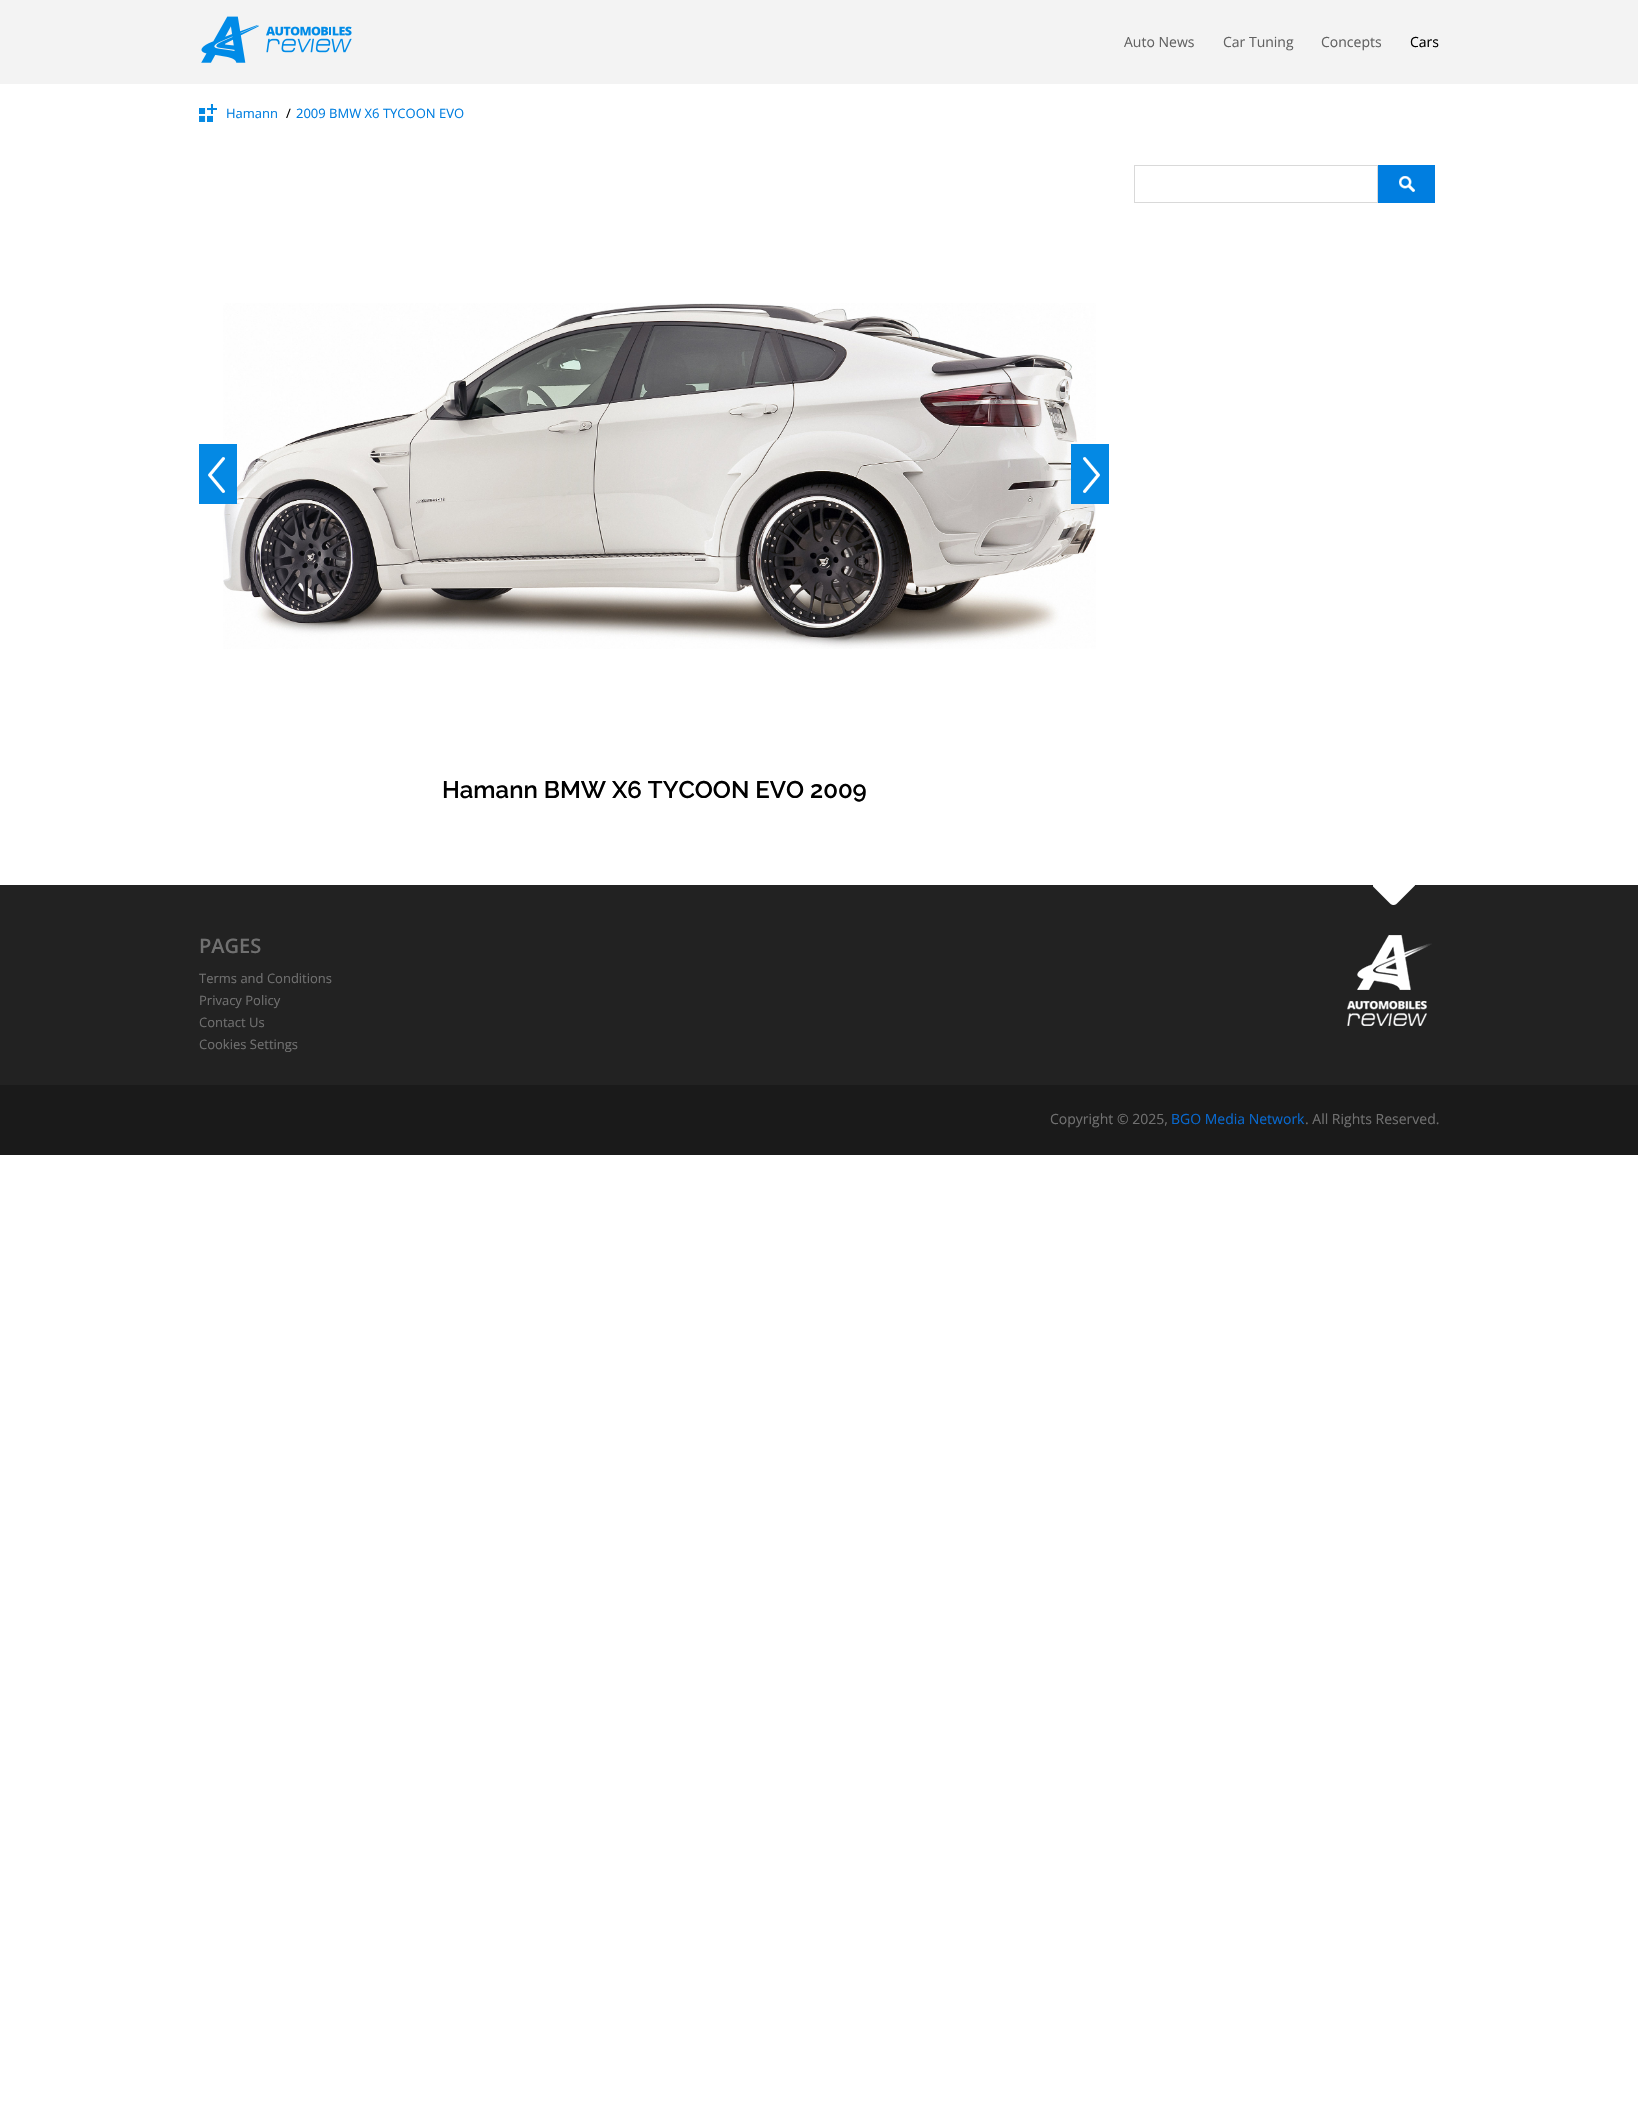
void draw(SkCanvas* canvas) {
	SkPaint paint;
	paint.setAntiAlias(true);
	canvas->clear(0xffffffff);
	paint.setColor(0xfff3f3f3);
	canvas->drawRect(SkRect::MakeXYWH(0, 0, 1638, 84), paint);
	canvas->drawImageRect(SkImages::DeferredFromEncodedData(SkData::MakeFromFileName("img1.png")), SkRect::MakeXYWH(201, 16, 151, 47), SkSamplingOptions());
	SkFont f1(fontMgr->matchFamilyStyle("Open Sans", SkFontStyle::Normal()), 14);
	f1.setSubpixel(true);
	paint.setColor(0xff626262);
	canvas->drawString("Auto News", 1124, 47, f1, paint);
	canvas->drawString("Car Tuning", 1223, 47, f1, paint);
	canvas->drawString("Concepts", 1321, 47, f1, paint);
	paint.setColor(0xff000000);
	canvas->drawString("Cars", 1410, 47, f1, paint);
	canvas->drawImageRect(SkImages::DeferredFromEncodedData(SkData::MakeFromFileName("img2.png")), SkRect::MakeXYWH(199, 104, 18, 18), SkSamplingOptions());
	SkFont f2(fontMgr->matchFamilyStyle("Open Sans", SkFontStyle::Normal()), 13);
	f2.setSubpixel(true);
	paint.setColor(0xff007ee0);
	canvas->drawString("Hamann", 226, 118, f2, paint);
	paint.setColor(0xff000000);
	canvas->drawString("/", 286, 118, f2, paint);
	paint.setColor(0xff007ee0);
	canvas->drawString("2009 BMW X6 TYCOON EVO", 296, 118, f2, paint);
	paint.setStroke(true);
	paint.setStrokeWidth(1);
	paint.setColor(0xffd9d9d9);
	canvas->drawRect(SkRect::MakeXYWH(1134.5, 165.5, 243, 37), paint);
	canvas->drawImageRect(SkImages::DeferredFromEncodedData(SkData::MakeFromFileName("img3.png")), SkRect::MakeXYWH(1378, 165, 57, 38), SkSamplingOptions());
	canvas->drawImageRect(SkImages::DeferredFromEncodedData(SkData::MakeFromFileName("img6.png")), SkRect::MakeXYWH(223, 303, 873, 346), SkSamplingOptions());
	paint.setStroke(false);
	paint.setColor(0xff0489e4);
	canvas->drawRect(SkRect::MakeXYWH(199, 444, 38, 60), paint);
	canvas->drawImageRect(SkImages::DeferredFromEncodedData(SkData::MakeFromFileName("img4.png")), SkRect::MakeXYWH(208, 457, 17, 36), SkSamplingOptions());
	canvas->drawRect(SkRect::MakeXYWH(1071, 444, 38, 60), paint);
	canvas->drawImageRect(SkImages::DeferredFromEncodedData(SkData::MakeFromFileName("img5.png")), SkRect::MakeXYWH(1083, 457, 17, 36), SkSamplingOptions());
	SkFont f3(fontMgr->matchFamilyStyle("Raleway", SkFontStyle(600, SkFontStyle::kNormal_Width, SkFontStyle::kUpright_Slant)), 24);
	f3.setSubpixel(true);
	paint.setColor(0xff000000);
	canvas->drawString("Hamann BMW X6 TYCOON EVO 2009", 442, 798, f3, paint);
	paint.setColor(0xff222222);
	canvas->drawRect(SkRect::MakeXYWH(0, 885, 1638, 200), paint);
	canvas->drawImageRect(SkImages::DeferredFromEncodedData(SkData::MakeFromFileName("img7.png")), SkRect::MakeXYWH(1373, 885, 42, 20), SkSamplingOptions());
	SkFont f4(fontMgr->matchFamilyStyle("Open Sans", SkFontStyle(600, SkFontStyle::kNormal_Width, SkFontStyle::kUpright_Slant)), 20);
	f4.setSubpixel(true);
	paint.setColor(0xff707070);
	canvas->drawString("PAGES", 199, 953, f4, paint);
	canvas->drawString("Terms and Conditions", 199, 983, f2, paint);
	canvas->drawString("Privacy Policy", 199, 1005, f2, paint);
	canvas->drawString("Contact Us", 199, 1027, f2, paint);
	canvas->drawString("Cookies Settings", 199, 1049, f2, paint);
	canvas->drawImageRect(SkImages::DeferredFromEncodedData(SkData::MakeFromFileName("img8.png")), SkRect::MakeXYWH(1347, 935, 85, 91), SkSamplingOptions());
	paint.setColor(0xff1a1a1a);
	canvas->drawRect(SkRect::MakeXYWH(0, 1085, 1638, 70), paint);
	paint.setColor(0xff707070);
	canvas->drawString("Copyright © 2025,", 1050, 1124, f1, paint);
	paint.setColor(0xff0868ce);
	canvas->drawString("BGO Media Network", 1171, 1124, f1, paint);
	paint.setColor(0xff707070);
	canvas->drawString(". All Rights Reserved.", 1305, 1124, f1, paint);
}
